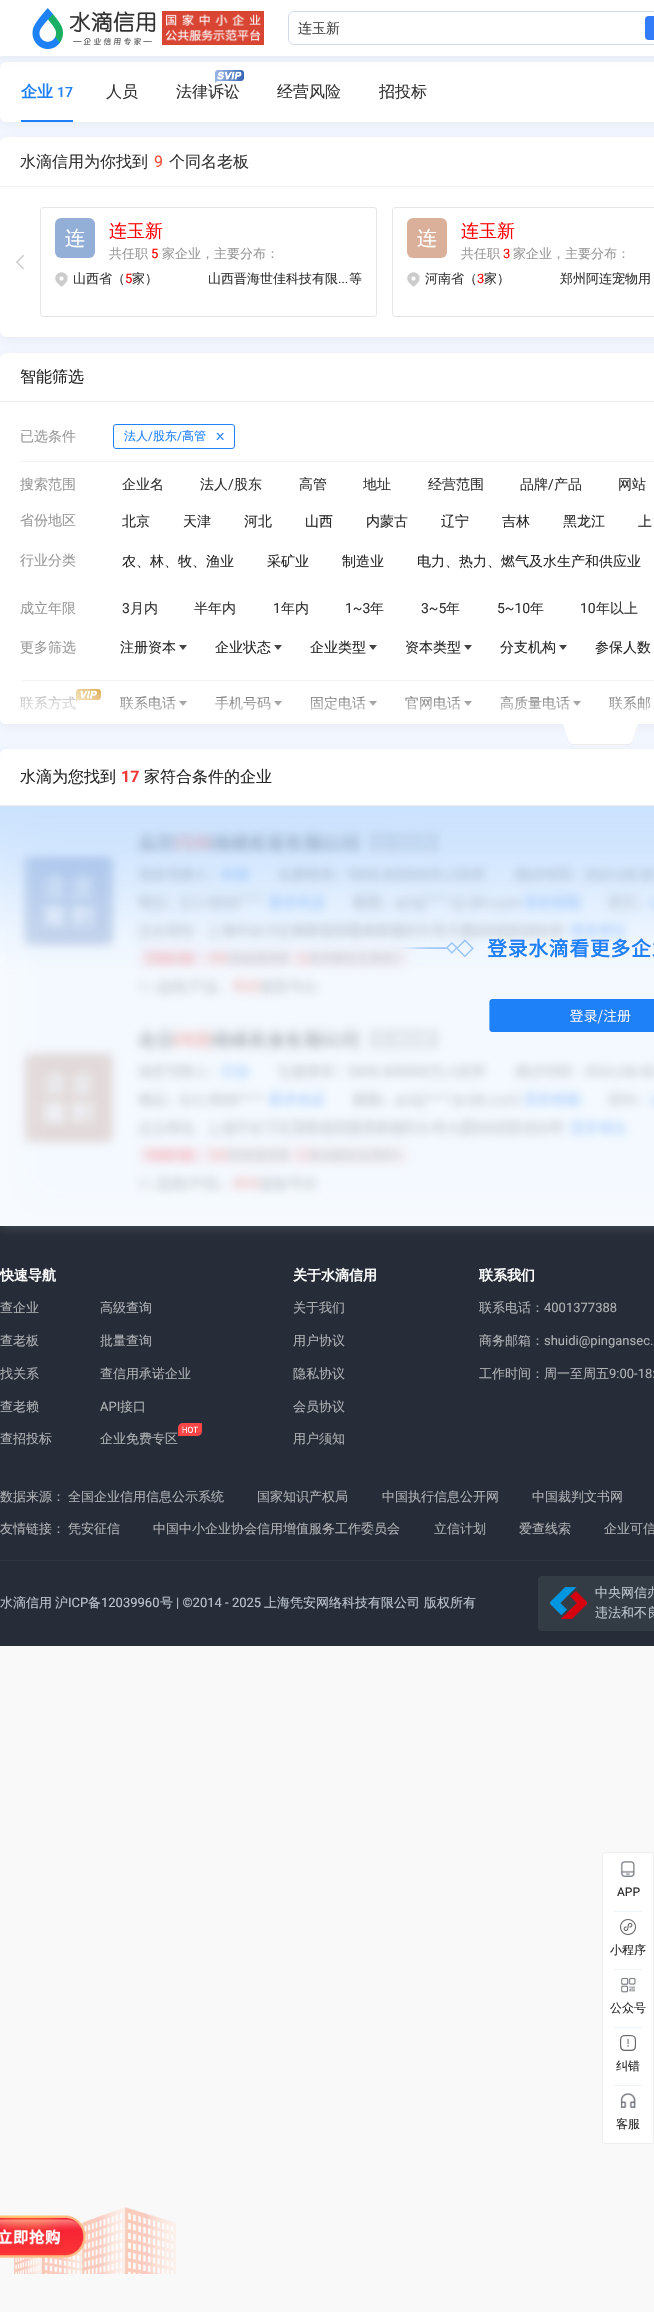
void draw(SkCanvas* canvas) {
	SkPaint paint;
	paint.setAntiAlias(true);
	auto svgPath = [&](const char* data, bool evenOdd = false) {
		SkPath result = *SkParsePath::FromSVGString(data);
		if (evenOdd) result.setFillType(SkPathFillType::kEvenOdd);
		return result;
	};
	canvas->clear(0xfff9f9f9);
	paint.setColor(0xfff2f6ff);
	canvas->drawRect(SkRect::MakeXYWH(0, 56, 654, 699), paint);
	paint.setColor(0x2eb8bdc7);
	paint.setMaskFilter(SkMaskFilter::MakeBlur(kNormal_SkBlurStyle, 5));
	canvas->drawRoundRect(SkRect::MakeXYWH(0, 65, 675, 60), 6, 6, paint);
	paint.setMaskFilter(nullptr);
	paint.setColor(0xffffffff);
	canvas->drawRoundRect(SkRect::MakeXYWH(0, 62, 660, 60), 6, 6, paint);
	canvas->drawImageRect(SkImages::DeferredFromEncodedData(SkData::MakeFromFileName("img3.png")), SkRect::MakeXYWH(215, 70, 29, 13), SkSamplingOptions());
	paint.setColor(0x33a1a1a1);
	paint.setMaskFilter(SkMaskFilter::MakeBlur(kNormal_SkBlurStyle, 5));
	canvas->drawRect(SkRect::MakeXYWH(0, 1, 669, 56), paint);
	paint.setMaskFilter(nullptr);
	paint.setColor(0xffffffff);
	canvas->drawRect(SkRect::MakeXYWH(0, 0, 654, 56), paint);
	canvas->drawImageRect(SkImages::DeferredFromEncodedData(SkData::MakeFromFileName("img1.png")), SkRect::MakeXYWH(32, 8, 124, 41), SkSamplingOptions());
	canvas->drawImageRect(SkImages::DeferredFromEncodedData(SkData::MakeFromFileName("img2.png")), SkRect::MakeXYWH(162, 11, 102, 34), SkSamplingOptions());
	paint.setStroke(true);
	paint.setStrokeWidth(1);
	paint.setColor(0xffd3dbe9);
	canvas->drawRoundRect(SkRect::MakeXYWH(288.5, 11.5, 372, 33), 5.5, 5.5, paint);
	SkFont f1(fontMgr->matchFamilyStyle("WenQuanYi Zen Hei", SkFontStyle(500, SkFontStyle::kNormal_Width, SkFontStyle::kUpright_Slant)), 14);
	f1.setSubpixel(true);
	paint.setStroke(false);
	paint.setColor(0xff444444);
	canvas->drawString("连玉新", 298, 33, f1, paint);
	paint.setColor(0xff327bf9);
	canvas->drawRoundRect(SkRect::MakeXYWH(645, 16, 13, 24), 4, 4, paint);
	SkFont f2(fontMgr->matchFamilyStyle("WenQuanYi Zen Hei", SkFontStyle::Bold()), 16);
	f2.setSubpixel(true);
	paint.setColor(0xff1f81f8);
	canvas->drawString("企业", 21, 97, f2, paint);
	SkFont f3(fontMgr->matchFamilyStyle("Roboto", SkFontStyle(500, SkFontStyle::kNormal_Width, SkFontStyle::kUpright_Slant)), 14);
	f3.setSubpixel(true);
	canvas->drawString("17", 57, 97, f3, paint);
	canvas->drawRect(SkRect::MakeXYWH(21, 120, 52, 2), paint);
	SkFont f4(fontMgr->matchFamilyStyle("WenQuanYi Zen Hei", SkFontStyle(500, SkFontStyle::kNormal_Width, SkFontStyle::kUpright_Slant)), 16);
	f4.setSubpixel(true);
	paint.setColor(0xff333333);
	canvas->drawString("人员", 106, 97, f4, paint);
	canvas->drawString("法律诉讼", 176, 97, f4, paint);
	canvas->drawString("经营风险", 277, 97, f4, paint);
	canvas->drawString("招投标", 379, 97, f4, paint);
	paint.setColor(0x2eb8bdc7);
	paint.setMaskFilter(SkMaskFilter::MakeBlur(kNormal_SkBlurStyle, 5));
	canvas->drawRoundRect(SkRect::MakeXYWH(0, 140, 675, 200), 6, 6, paint);
	paint.setMaskFilter(nullptr);
	paint.setColor(0xffffffff);
	canvas->drawRoundRect(SkRect::MakeXYWH(0, 137, 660, 200), 6, 6, paint);
	paint.setColor(0xfff3f3f3);
	canvas->drawRect(SkRect::MakeXYWH(0, 186, 654, 1), paint);
	paint.setColor(0xff333333);
	canvas->drawString("水滴信用为你找到", 20, 167, f4, paint);
	SkFont f5(fontMgr->matchFamilyStyle("Roboto", SkFontStyle::Normal()), 16);
	f5.setSubpixel(true);
	paint.setColor(0xfff24e31);
	canvas->drawString("9", 154, 167, f5, paint);
	paint.setColor(0xff333333);
	canvas->drawString("个同名老板", 169, 167, f4, paint);
	canvas->drawImageRect(SkImages::DeferredFromEncodedData(SkData::MakeFromFileName("img4.png")), SkRect::MakeXYWH(16, 255, 8, 14), SkSamplingOptions());
	paint.setStroke(true);
	paint.setColor(0xffe7e6e6);
	canvas->drawRoundRect(SkRect::MakeXYWH(40.5, 207.5, 336, 109), 2.5, 2.5, paint);
	paint.setStroke(false);
	paint.setColor(0xff94afd7);
	canvas->drawRoundRect(SkRect::MakeXYWH(55, 218, 40, 40), 6, 6, paint);
	SkFont f6(fontMgr->matchFamilyStyle("WenQuanYi Zen Hei", SkFontStyle(500, SkFontStyle::kNormal_Width, SkFontStyle::kUpright_Slant)), 20);
	f6.setSubpixel(true);
	paint.setColor(0xffffffff);
	canvas->drawString("连", 65, 245, f6, paint);
	SkFont f7(fontMgr->matchFamilyStyle("WenQuanYi Zen Hei", SkFontStyle(500, SkFontStyle::kNormal_Width, SkFontStyle::kUpright_Slant)), 18);
	f7.setSubpixel(true);
	paint.setColor(0xffff0000);
	canvas->drawString("连玉新", 109, 237, f7, paint);
	SkFont f8(fontMgr->matchFamilyStyle("WenQuanYi Zen Hei", SkFontStyle(500, SkFontStyle::kNormal_Width, SkFontStyle::kUpright_Slant)), 13);
	f8.setSubpixel(true);
	paint.setColor(0xff999999);
	canvas->drawString("共任职", 109, 258, f8, paint);
	SkFont f9(fontMgr->matchFamilyStyle("Roboto", SkFontStyle::Normal()), 13);
	f9.setSubpixel(true);
	paint.setColor(0xffff0000);
	canvas->drawString("5", 151, 258, f9, paint);
	paint.setColor(0xff999999);
	canvas->drawString("家企业，主要分布：", 162, 258, f8, paint);
	canvas->drawImageRect(SkImages::DeferredFromEncodedData(SkData::MakeFromFileName("img5.png")), SkRect::MakeXYWH(55, 272, 13, 15), SkSamplingOptions());
	paint.setColor(0xff333333);
	canvas->drawString("山西省（", 73, 283, f8, paint);
	paint.setColor(0xffff0000);
	canvas->drawString("5", 125, 283, f9, paint);
	paint.setColor(0xff333333);
	canvas->drawString("家）", 132, 283, f8, paint);
	canvas->drawString("山西晋海世佳科技有限", 208, 283, f8, paint);
	canvas->drawString("...", 338, 283, f9, paint);
	canvas->drawString("等", 349, 283, f8, paint);
	paint.setStroke(true);
	paint.setColor(0xffe7e6e6);
	canvas->drawRoundRect(SkRect::MakeXYWH(392.5, 207.5, 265, 109), 2.5, 2.5, paint);
	paint.setStroke(false);
	paint.setColor(0xffdab09a);
	canvas->drawRoundRect(SkRect::MakeXYWH(407, 218, 40, 40), 6, 6, paint);
	paint.setColor(0xffffffff);
	canvas->drawString("连", 417, 245, f6, paint);
	paint.setColor(0xffff0000);
	canvas->drawString("连玉新", 461, 237, f7, paint);
	paint.setColor(0xff999999);
	canvas->drawString("共任职", 461, 258, f8, paint);
	paint.setColor(0xffff0000);
	canvas->drawString("3", 503, 258, f9, paint);
	paint.setColor(0xff999999);
	canvas->drawString("家企业，主要分布：", 513, 258, f8, paint);
	canvas->drawImageRect(SkImages::DeferredFromEncodedData(SkData::MakeFromFileName("img5.png")), SkRect::MakeXYWH(407, 272, 13, 15), SkSamplingOptions());
	paint.setColor(0xff333333);
	canvas->drawString("河南省（", 425, 283, f8, paint);
	paint.setColor(0xffff0000);
	canvas->drawString("3", 477, 283, f9, paint);
	paint.setColor(0xff333333);
	canvas->drawString("家）", 484, 283, f8, paint);
	canvas->drawString("郑州阿连宠物用", 560, 283, f8, paint);
	paint.setColor(0x2eb8bdc7);
	paint.setMaskFilter(SkMaskFilter::MakeBlur(kNormal_SkBlurStyle, 5));
	canvas->drawRoundRect(SkRect::MakeXYWH(0, 356, 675, 371), 6, 6, paint);
	paint.setMaskFilter(nullptr);
	paint.setColor(0xffffffff);
	canvas->drawRoundRect(SkRect::MakeXYWH(0, 353, 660, 371), 6, 6, paint);
	paint.setColor(0xffe7e9ef);
	canvas->drawRect(SkRect::MakeXYWH(0, 401, 654, 1), paint);
	paint.setColor(0xff262626);
	canvas->drawString("智能筛选", 20, 382, f4, paint);
	paint.setColor(0xfff3f3f3);
	canvas->drawRect(SkRect::MakeXYWH(20, 461, 634, 1), paint);
	paint.setColor(0xff999999);
	canvas->drawString("已选条件", 20, 441, f1, paint);
	paint.setStroke(true);
	paint.setColor(0xff1f81f8);
	canvas->drawRoundRect(SkRect::MakeXYWH(113.5, 424.5, 121, 24), 2.5, 2.5, paint);
	SkFont f10(fontMgr->matchFamilyStyle("WenQuanYi Zen Hei", SkFontStyle(500, SkFontStyle::kNormal_Width, SkFontStyle::kUpright_Slant)), 12);
	f10.setSubpixel(true);
	paint.setStroke(false);
	canvas->drawString("法人", 124, 440, f10, paint);
	SkFont f11(fontMgr->matchFamilyStyle("Roboto", SkFontStyle::Normal()), 12);
	f11.setSubpixel(true);
	canvas->drawString("/", 148, 440, f11, paint);
	canvas->drawString("股东", 153, 440, f10, paint);
	canvas->drawString("/", 177, 440, f11, paint);
	canvas->drawString("高管", 182, 440, f10, paint);
	canvas->drawImageRect(SkImages::DeferredFromEncodedData(SkData::MakeFromFileName("img6.png")), SkRect::MakeXYWH(216, 433, 8, 7), SkSamplingOptions());
	paint.setColor(0xff999999);
	canvas->drawString("搜索范围", 20, 489, f1, paint);
	paint.setColor(0xff333333);
	canvas->drawString("企业名", 122, 489, f1, paint);
	canvas->drawString("法人", 200, 489, f1, paint);
	SkFont f12(fontMgr->matchFamilyStyle("Roboto", SkFontStyle::Normal()), 14);
	f12.setSubpixel(true);
	canvas->drawString("/", 228, 489, f12, paint);
	canvas->drawString("股东", 234, 489, f1, paint);
	canvas->drawString("高管", 299, 489, f1, paint);
	canvas->drawString("地址", 363, 489, f1, paint);
	canvas->drawString("经营范围", 428, 489, f1, paint);
	canvas->drawString("品牌", 520, 489, f1, paint);
	canvas->drawString("/", 548, 489, f12, paint);
	canvas->drawString("产品", 554, 489, f1, paint);
	canvas->drawString("网站", 618, 489, f1, paint);
	paint.setColor(0xff999999);
	canvas->drawString("省份地区", 20, 525, f1, paint);
	paint.setColor(0xff262626);
	canvas->drawString("北京", 122, 526, f1, paint);
	canvas->drawString("天津", 183, 526, f1, paint);
	canvas->drawString("河北", 244, 526, f1, paint);
	canvas->drawString("山西", 305, 526, f1, paint);
	canvas->drawString("内蒙古", 366, 526, f1, paint);
	canvas->drawString("辽宁", 441, 526, f1, paint);
	canvas->drawString("吉林", 502, 526, f1, paint);
	canvas->drawString("黑龙江", 563, 526, f1, paint);
	canvas->drawString("上", 638, 526, f1, paint);
	paint.setColor(0xff999999);
	canvas->drawString("行业分类", 20, 565, f1, paint);
	paint.setColor(0xff262626);
	canvas->drawString("农、林、牧、渔业", 122, 566, f1, paint);
	canvas->drawString("采矿业", 267, 566, f1, paint);
	canvas->drawString("制造业", 342, 566, f1, paint);
	canvas->drawString("电力、热力、燃气及水生产和供应业", 417, 566, f1, paint);
	paint.setColor(0xff999999);
	canvas->drawString("成立年限", 20, 613, f1, paint);
	paint.setColor(0xff333333);
	canvas->drawString("3", 122, 613, f12, paint);
	canvas->drawString("月内", 130, 613, f1, paint);
	canvas->drawString("半年内", 194, 613, f1, paint);
	canvas->drawString("1", 273, 613, f12, paint);
	canvas->drawString("年内", 281, 613, f1, paint);
	canvas->drawString("1~3", 345, 613, f12, paint);
	canvas->drawString("年", 370, 613, f1, paint);
	canvas->drawString("3~5", 421, 613, f12, paint);
	canvas->drawString("年", 446, 613, f1, paint);
	canvas->drawString("5~10", 497, 613, f12, paint);
	canvas->drawString("年", 530, 613, f1, paint);
	canvas->drawString("10", 580, 613, f12, paint);
	canvas->drawString("年以上", 596, 613, f1, paint);
	paint.setColor(0xff999999);
	canvas->drawString("更多筛选", 20, 652, f1, paint);
	paint.setColor(0xff262626);
	canvas->drawString("注册资本", 120, 652, f1, paint);
	paint.setColor(0xff444444);
	canvas->drawPath(svgPath("M179 645H187L183 650Z"), paint);
	paint.setColor(0xff262626);
	canvas->drawString("企业状态", 215, 652, f1, paint);
	paint.setColor(0xff444444);
	canvas->drawPath(svgPath("M274 645H282L278 650Z"), paint);
	paint.setColor(0xff262626);
	canvas->drawString("企业类型", 310, 652, f1, paint);
	paint.setColor(0xff444444);
	canvas->drawPath(svgPath("M369 645H377L373 650Z"), paint);
	paint.setColor(0xff262626);
	canvas->drawString("资本类型", 405, 652, f1, paint);
	paint.setColor(0xff444444);
	canvas->drawPath(svgPath("M464 645H472L468 650Z"), paint);
	paint.setColor(0xff262626);
	canvas->drawString("分支机构", 500, 652, f1, paint);
	paint.setColor(0xff444444);
	canvas->drawPath(svgPath("M559 645H567L563 650Z"), paint);
	paint.setColor(0xff262626);
	canvas->drawString("参保人数", 595, 652, f1, paint);
	paint.setColor(0xfff3f3f3);
	canvas->drawRect(SkRect::MakeXYWH(22, 680, 632, 1), paint);
	paint.setColor(0xff999999);
	canvas->drawString("联系方式", 20, 708, f1, paint);
	canvas->drawImageRect(SkImages::DeferredFromEncodedData(SkData::MakeFromFileName("img7.png")), SkRect::MakeXYWH(76, 689, 25, 13), SkSamplingOptions());
	paint.setColor(0xff262626);
	canvas->drawString("联系电话", 120, 708, f1, paint);
	paint.setColor(0xff444444);
	canvas->drawPath(svgPath("M179 701H187L183 706Z"), paint);
	paint.setColor(0xff262626);
	canvas->drawString("手机号码", 215, 708, f1, paint);
	paint.setColor(0xff444444);
	canvas->drawPath(svgPath("M274 701H282L278 706Z"), paint);
	paint.setColor(0xff262626);
	canvas->drawString("固定电话", 310, 708, f1, paint);
	paint.setColor(0xff444444);
	canvas->drawPath(svgPath("M369 701H377L373 706Z"), paint);
	paint.setColor(0xff262626);
	canvas->drawString("官网电话", 405, 708, f1, paint);
	paint.setColor(0xff444444);
	canvas->drawPath(svgPath("M464 701H472L468 706Z"), paint);
	paint.setColor(0xff262626);
	canvas->drawString("高质量电话", 500, 708, f1, paint);
	paint.setColor(0xff444444);
	canvas->drawPath(svgPath("M573 701H581L577 706Z"), paint);
	paint.setColor(0xff262626);
	canvas->drawString("联系邮", 609, 708, f1, paint);
	{
		const SkColor colors[] = {0xffffffff, 0x33ffffff};
		const float stops[] = {0, 1};
		const SkPoint ends[] = {{600, 724}, {600, 688}};
		paint.setShader(SkGradientShader::MakeLinear(ends, colors, stops, 2, SkTileMode::kClamp));
		paint.setAlpha(255);
	}
	canvas->drawRoundRect(SkRect::MakeXYWH(0, 688, 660, 36), 6, 6, paint);
	paint.setShader(nullptr);
	paint.setColor(0xff262d38);
	canvas->drawRect(SkRect::MakeXYWH(0, 1226, 654, 420), paint);
	paint.setColor(0x2eb8bdc7);
	paint.setMaskFilter(SkMaskFilter::MakeBlur(kNormal_SkBlurStyle, 5));
	canvas->drawRoundRect(SkRect::MakeXYWH(0, 752, 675, 477), 6, 6, paint);
	paint.setMaskFilter(nullptr);
	canvas->drawImageRect(SkImages::DeferredFromEncodedData(SkData::MakeFromFileName("img8.png")), SkRect::MakeXYWH(563, 724, 75, 21), SkSamplingOptions());
	paint.setColor(0xffffffff);
	canvas->drawRoundRect(SkRect::MakeXYWH(0, 749, 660, 477), 6, 6, paint);
	paint.setColor(0xffeeeeee);
	canvas->drawRect(SkRect::MakeXYWH(0, 805, 654, 1), paint);
	paint.setColor(0xff262626);
	canvas->drawString("水滴为您找到", 20, 782, f4, paint);
	SkFont f13(fontMgr->matchFamilyStyle("Roboto", SkFontStyle::Bold()), 16);
	f13.setSubpixel(true);
	paint.setColor(0xfff43738);
	canvas->drawString("17", 121, 782, f13, paint);
	paint.setColor(0xff262626);
	canvas->drawString("家符合条件的企业", 144, 782, f4, paint);
	canvas->drawImageRect(SkImages::DeferredFromEncodedData(SkData::MakeFromFileName("img9.png")), SkRect::MakeXYWH(0, 806, 654, 420), SkSamplingOptions());
	SkFont f14(fontMgr->matchFamilyStyle("WenQuanYi Zen Hei", SkFontStyle::Bold()), 14);
	f14.setSubpixel(true);
	paint.setColor(0xffffffff);
	canvas->drawString("快速导航", 0, 1280, f14, paint);
	paint.setColor(0xffafb1b4);
	canvas->drawString("查企业", 0, 1312, f8, paint);
	canvas->drawString("查老板", 0, 1345, f8, paint);
	canvas->drawString("找关系", 0, 1378, f8, paint);
	canvas->drawString("查老赖", 0, 1411, f8, paint);
	canvas->drawString("查招投标", 0, 1443, f8, paint);
	canvas->drawString("高级查询", 100, 1312, f8, paint);
	canvas->drawString("批量查询", 100, 1345, f8, paint);
	canvas->drawString("查信用承诺企业", 100, 1378, f8, paint);
	canvas->drawString("API", 100, 1411, f9, paint);
	canvas->drawString("接口", 120, 1411, f8, paint);
	canvas->drawImageRect(SkImages::DeferredFromEncodedData(SkData::MakeFromFileName("img10.png")), SkRect::MakeXYWH(178, 1423, 24, 13), SkSamplingOptions());
	canvas->drawString("企业免费专区", 100, 1443, f8, paint);
	paint.setColor(0xffffffff);
	canvas->drawString("关于水滴信用", 293, 1280, f14, paint);
	paint.setColor(0xffafb1b4);
	canvas->drawString("关于我们", 293, 1312, f8, paint);
	canvas->drawString("用户协议", 293, 1345, f8, paint);
	canvas->drawString("隐私协议", 293, 1378, f8, paint);
	canvas->drawString("会员协议", 293, 1411, f8, paint);
	canvas->drawString("用户须知", 293, 1443, f8, paint);
	paint.setColor(0xffffffff);
	canvas->drawString("联系我们", 479, 1280, f14, paint);
	paint.setColor(0xffafb1b4);
	canvas->drawString("联系电话：", 479, 1312, f8, paint);
	canvas->drawString("4001377388", 544, 1312, f9, paint);
	canvas->drawString("商务邮箱：", 479, 1345, f8, paint);
	canvas->drawString("shuidi@pingansec.", 544, 1345, f9, paint);
	canvas->drawString("工作时间：周一至周五", 479, 1378, f8, paint);
	canvas->drawString("9:00-18:", 609, 1378, f9, paint);
	canvas->drawString("数据来源：", 0, 1501, f8, paint);
	canvas->drawString("全国企业信用信息公示系统", 68, 1501, f8, paint);
	canvas->drawString("国家知识产权局", 257, 1501, f8, paint);
	canvas->drawString("中国执行信息公开网", 382, 1501, f8, paint);
	canvas->drawString("中国裁判文书网", 532, 1501, f8, paint);
	canvas->drawString("友情链接：", 0, 1533, f8, paint);
	canvas->drawString("凭安征信", 68, 1533, f8, paint);
	canvas->drawString("中国中小企业协会信用增值服务工作委员会", 153, 1533, f8, paint);
	canvas->drawString("立信计划", 434, 1533, f8, paint);
	canvas->drawString("爱查线索", 519, 1533, f8, paint);
	canvas->drawString("企业可信", 604, 1533, f8, paint);
	paint.setColor(0xff2f3543);
	canvas->drawRect(SkRect::MakeXYWH(0, 1560, 654, 1), paint);
	paint.setColor(0xffbbc4ce);
	canvas->drawString("水滴信用", 0, 1607, f8, paint);
	canvas->drawString("沪", 55, 1607, f8, paint);
	canvas->drawString("ICP", 68, 1607, f9, paint);
	canvas->drawString("备", 88, 1607, f8, paint);
	canvas->drawString("12039960", 101, 1607, f9, paint);
	canvas->drawString("号", 160, 1607, f8, paint);
	canvas->drawString("| ©2014 - 2025", 176, 1607, f9, paint);
	canvas->drawString("上海凭安网络科技有限公司", 264, 1607, f8, paint);
	canvas->drawString("版权所有", 424, 1607, f8, paint);
	paint.setColor(0xff333c45);
	canvas->drawRoundRect(SkRect::MakeXYWH(538, 1576, 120, 55), 4, 4, paint);
	canvas->drawImageRect(SkImages::DeferredFromEncodedData(SkData::MakeFromFileName("img11.png")), SkRect::MakeXYWH(550, 1587, 37, 32), SkSamplingOptions());
	paint.setColor(0xffbbc4ce);
	canvas->drawString("中央网信办", 595, 1597, f8, paint);
	canvas->drawString("违法和不良", 595, 1617, f8, paint);
	canvas->drawImageRect(SkImages::DeferredFromEncodedData(SkData::MakeFromFileName("img12.png")), SkRect::MakeXYWH(0, 2207, 176, 67), SkSamplingOptions());
	paint.setColor(0xffffffff);
	canvas->drawRoundRect(SkRect::MakeXYWH(602.5, 1852.5, 51, 291), 2.5, 2.5, paint);
	paint.setStroke(true);
	paint.setColor(0xffeeeeee);
	canvas->drawRoundRect(SkRect::MakeXYWH(602.5, 1852.5, 51, 291), 2.5, 2.5, paint);
	canvas->drawImageRect(SkImages::DeferredFromEncodedData(SkData::MakeFromFileName("img13.png")), SkRect::MakeXYWH(620, 1861, 15, 16), SkSamplingOptions());
	paint.setStroke(false);
	paint.setColor(0xff262626);
	canvas->drawString("APP", 617, 1896, f11, paint);
	canvas->drawImageRect(SkImages::DeferredFromEncodedData(SkData::MakeFromFileName("img14.png")), SkRect::MakeXYWH(620, 1919, 16, 16), SkSamplingOptions());
	paint.setColor(0xfff0f5fa);
	canvas->drawRect(SkRect::MakeXYWH(613, 1911, 30, 1), paint);
	paint.setColor(0xff262626);
	canvas->drawString("小程序", 610, 1954, f10, paint);
	canvas->drawImageRect(SkImages::DeferredFromEncodedData(SkData::MakeFromFileName("img15.png")), SkRect::MakeXYWH(620, 1977, 16, 16), SkSamplingOptions());
	paint.setColor(0xfff0f5fa);
	canvas->drawRect(SkRect::MakeXYWH(613, 1969, 30, 1), paint);
	paint.setColor(0xff262626);
	canvas->drawString("公众号", 610, 2012, f10, paint);
	canvas->drawImageRect(SkImages::DeferredFromEncodedData(SkData::MakeFromFileName("img16.png")), SkRect::MakeXYWH(620, 2035, 16, 16), SkSamplingOptions());
	paint.setColor(0xfff0f5fa);
	canvas->drawRect(SkRect::MakeXYWH(613, 2027, 30, 1), paint);
	paint.setColor(0xff262626);
	canvas->drawString("纠错", 616, 2070, f10, paint);
	canvas->drawImageRect(SkImages::DeferredFromEncodedData(SkData::MakeFromFileName("img17.png")), SkRect::MakeXYWH(620, 2093, 16, 16), SkSamplingOptions());
	paint.setColor(0xfff0f5fa);
	canvas->drawRect(SkRect::MakeXYWH(613, 2085, 30, 1), paint);
	paint.setColor(0xff262626);
	canvas->drawString("客服", 616, 2128, f10, paint);
}
